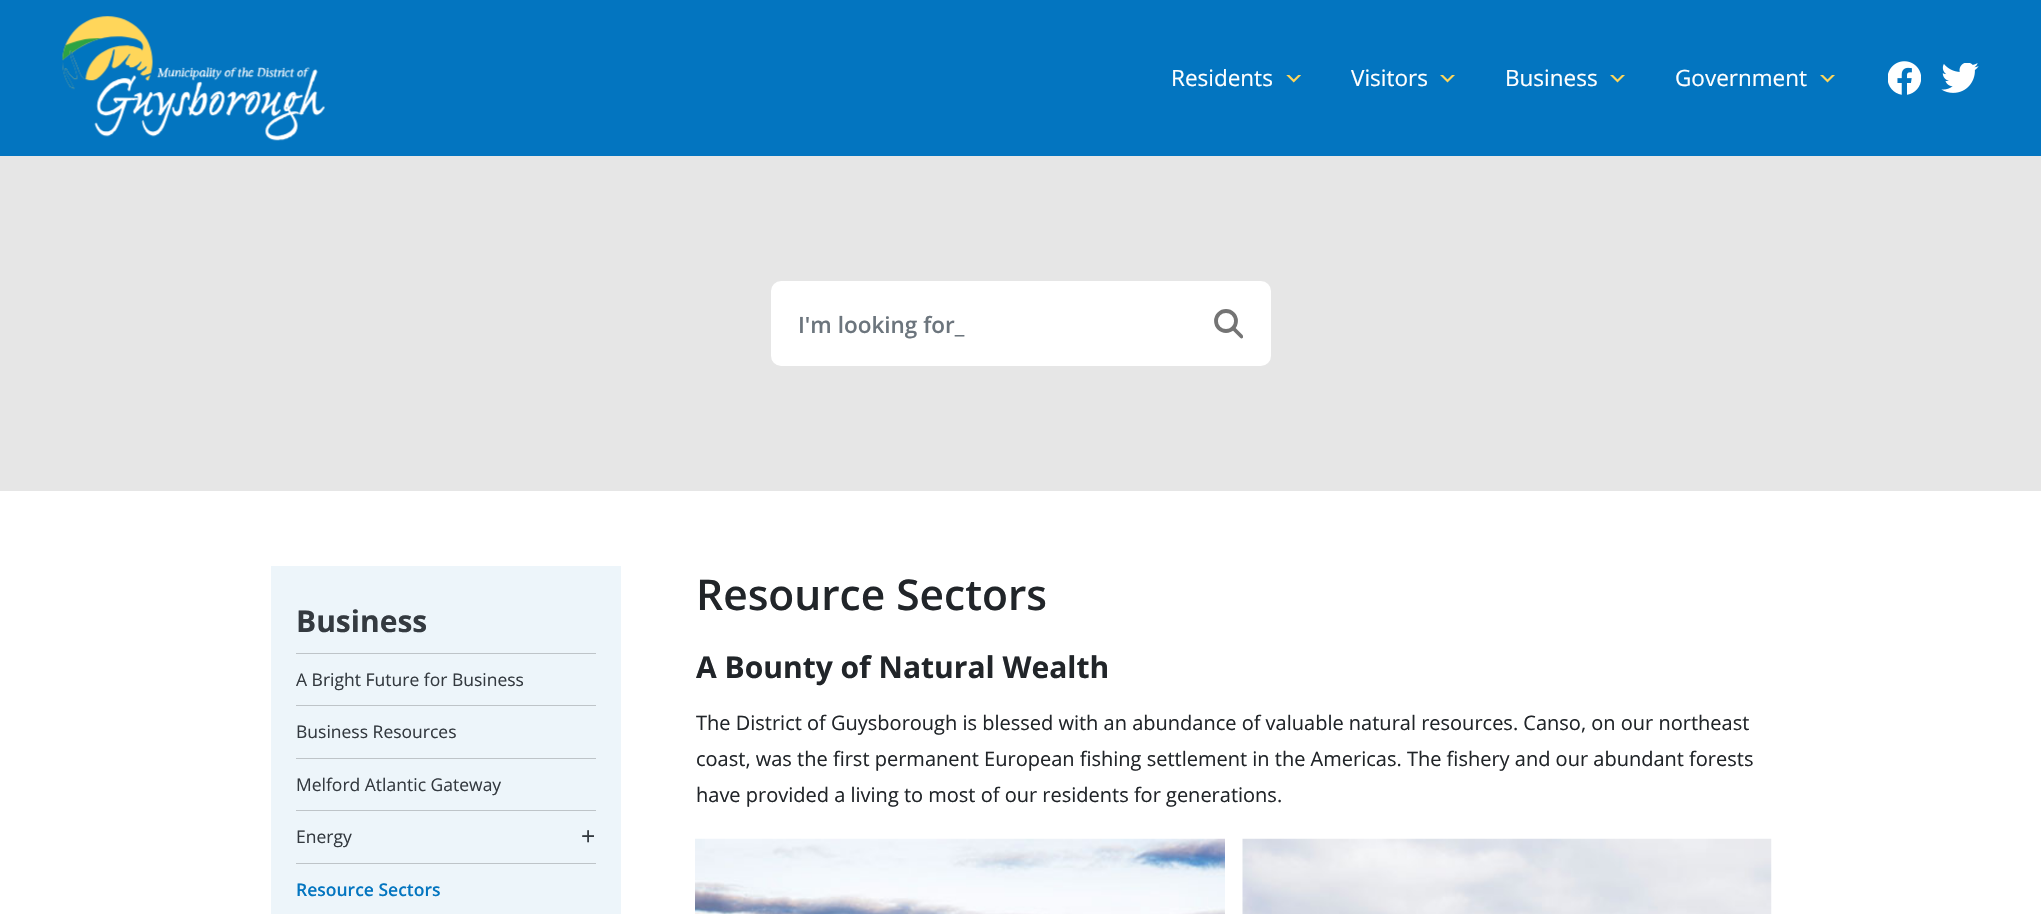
void draw(SkCanvas* canvas) {
	SkPaint paint;
	paint.setAntiAlias(true);
	auto svgPath = [&](const char* data, bool evenOdd = false) {
		SkPath result = *SkParsePath::FromSVGString(data);
		if (evenOdd) result.setFillType(SkPathFillType::kEvenOdd);
		return result;
	};
	canvas->clear(0xffffffff);
	paint.setColor(0xff0375c0);
	canvas->drawRect(SkRect::MakeXYWH(0, 0, 2041, 156), paint);
	canvas->drawImageRect(SkImages::DeferredFromEncodedData(SkData::MakeFromFileName("img1.png")), SkRect::MakeXYWH(62, 16, 263, 125), SkSamplingOptions());
	SkFont f1(fontMgr->matchFamilyStyle("Open Sans", SkFontStyle::Normal()), 22.5);
	f1.setSubpixel(true);
	paint.setColor(0xffffffff);
	canvas->drawString("Residents", 1171, 86, f1, paint);
	canvas->drawImageRect(SkImages::DeferredFromEncodedData(SkData::MakeFromFileName("img2.png")), SkRect::MakeXYWH(1286, 75, 15, 8), SkSamplingOptions());
	canvas->drawString("Visitors", 1351, 86, f1, paint);
	canvas->drawImageRect(SkImages::DeferredFromEncodedData(SkData::MakeFromFileName("img3.png")), SkRect::MakeXYWH(1440, 75, 15, 8), SkSamplingOptions());
	canvas->drawString("Business", 1505, 86, f1, paint);
	canvas->drawImageRect(SkImages::DeferredFromEncodedData(SkData::MakeFromFileName("img3.png")), SkRect::MakeXYWH(1610, 75, 15, 8), SkSamplingOptions());
	canvas->drawString("Government", 1675, 86, f1, paint);
	canvas->drawImageRect(SkImages::DeferredFromEncodedData(SkData::MakeFromFileName("img3.png")), SkRect::MakeXYWH(1820, 75, 15, 8), SkSamplingOptions());
	canvas->drawImageRect(SkImages::DeferredFromEncodedData(SkData::MakeFromFileName("img4.png")), SkRect::MakeXYWH(1888, 61, 33, 34), SkSamplingOptions());
	canvas->drawImageRect(SkImages::DeferredFromEncodedData(SkData::MakeFromFileName("img5.png")), SkRect::MakeXYWH(1941, 63, 38, 30), SkSamplingOptions());
	paint.setColor(0xffe6e6e6);
	canvas->drawRect(SkRect::MakeXYWH(0, 156, 2041, 335), paint);
	paint.setColor(0xffffffff);
	canvas->drawRoundRect(SkRect::MakeXYWH(772.5, 282.5, 497, 82), 8.5, 8.5, paint);
	paint.setStroke(true);
	paint.setStrokeWidth(3);
	canvas->drawRoundRect(SkRect::MakeXYWH(772.5, 282.5, 497, 82), 8.5, 8.5, paint);
	SkFont f2(fontMgr->matchFamilyStyle("Open Sans", SkFontStyle(600, SkFontStyle::kNormal_Width, SkFontStyle::kUpright_Slant)), 22.5);
	f2.setSubpixel(true);
	paint.setStroke(false);
	paint.setColor(0xff6c757d);
	canvas->drawString("I'm looking for_", 798, 333, f2, paint);
	paint.setStroke(true);
	paint.setStrokeWidth(3.8);
	paint.setColor(0xff747474);
	canvas->drawCircle(1226, 321, 10, paint);
	canvas->save();
	canvas->clipRect(SkRect::MakeXYWH(1214, 309, 29, 30));
	paint.setStrokeCap(SkPaint::kRound_Cap);
	canvas->drawPath(svgPath("M1233 328L1241.5 336.5"), paint);
	canvas->restore();
	paint.setStroke(false);
	paint.setColor(0xffedf5fa);
	canvas->drawRect(SkRect::MakeXYWH(271, 566, 350, 348), paint);
	paint.setColor(0xffbec4c8);
	canvas->drawRect(SkRect::MakeXYWH(296, 653, 300, 1), paint);
	SkFont f3(fontMgr->matchFamilyStyle("Open Sans", SkFontStyle::Bold()), 30);
	f3.setSubpixel(true);
	paint.setColor(0xff343a40);
	canvas->drawString("Business", 296, 632, f3, paint);
	paint.setColor(0xffbec4c8);
	canvas->drawRect(SkRect::MakeXYWH(296, 705, 300, 1), paint);
	SkFont f4(fontMgr->matchFamilyStyle("Open Sans", SkFontStyle::Normal()), 17.5);
	f4.setSubpixel(true);
	paint.setColor(0xff343a40);
	canvas->drawString("A Bright Future for Business", 296, 686, f4, paint);
	paint.setColor(0xffbec4c8);
	canvas->drawRect(SkRect::MakeXYWH(296, 758, 300, 1), paint);
	paint.setColor(0xff343a40);
	canvas->drawString("Business Resources", 296, 738, f4, paint);
	paint.setColor(0xffbec4c8);
	canvas->drawRect(SkRect::MakeXYWH(296, 810, 300, 1), paint);
	paint.setColor(0xff343a40);
	canvas->drawString("Melford Atlantic Gateway", 296, 791, f4, paint);
	paint.setColor(0xffbec4c8);
	canvas->drawRect(SkRect::MakeXYWH(296, 863, 300, 1), paint);
	paint.setColor(0xff343a40);
	canvas->drawString("Energy", 296, 843, f4, paint);
	SkFont f5(fontMgr->matchFamilyStyle("Open Sans", SkFontStyle::Normal()), 25);
	f5.setSubpixel(true);
	canvas->drawString("+", 581, 845, f5, paint);
	SkFont f6(fontMgr->matchFamilyStyle("Open Sans", SkFontStyle(600, SkFontStyle::kNormal_Width, SkFontStyle::kUpright_Slant)), 17.5);
	f6.setSubpixel(true);
	paint.setColor(0xff0375c0);
	canvas->drawString("Resource Sectors", 296, 896, f6, paint);
	SkFont f7(fontMgr->matchFamilyStyle("Open Sans", SkFontStyle(600, SkFontStyle::kNormal_Width, SkFontStyle::kUpright_Slant)), 42.5);
	f7.setSubpixel(true);
	paint.setColor(0xff212529);
	canvas->drawString("Resource Sectors", 696, 610, f7, paint);
	canvas->drawString("A Bounty of Natural Wealth", 696, 678, f3, paint);
	SkFont f8(fontMgr->matchFamilyStyle("Open Sans", SkFontStyle::Normal()), 20);
	f8.setSubpixel(true);
	canvas->drawString("The District of Guysborough is blessed with an abundance of valuable natural resources. Canso, on our northeast", 696, 730, f8, paint);
	canvas->drawString("coast, was the first permanent European fishing settlement in the Americas. The fishery and our abundant forests", 696, 766, f8, paint);
	canvas->drawString("have provided a living to most of our residents for generations.", 696, 802, f8, paint);
	canvas->drawImageRect(SkImages::DeferredFromEncodedData(SkData::MakeFromFileName("img6.png")), SkRect::MakeXYWH(695, 838, 530, 76), SkSamplingOptions());
	canvas->drawImageRect(SkImages::DeferredFromEncodedData(SkData::MakeFromFileName("img7.png")), SkRect::MakeXYWH(1242, 838, 530, 76), SkSamplingOptions());
}
